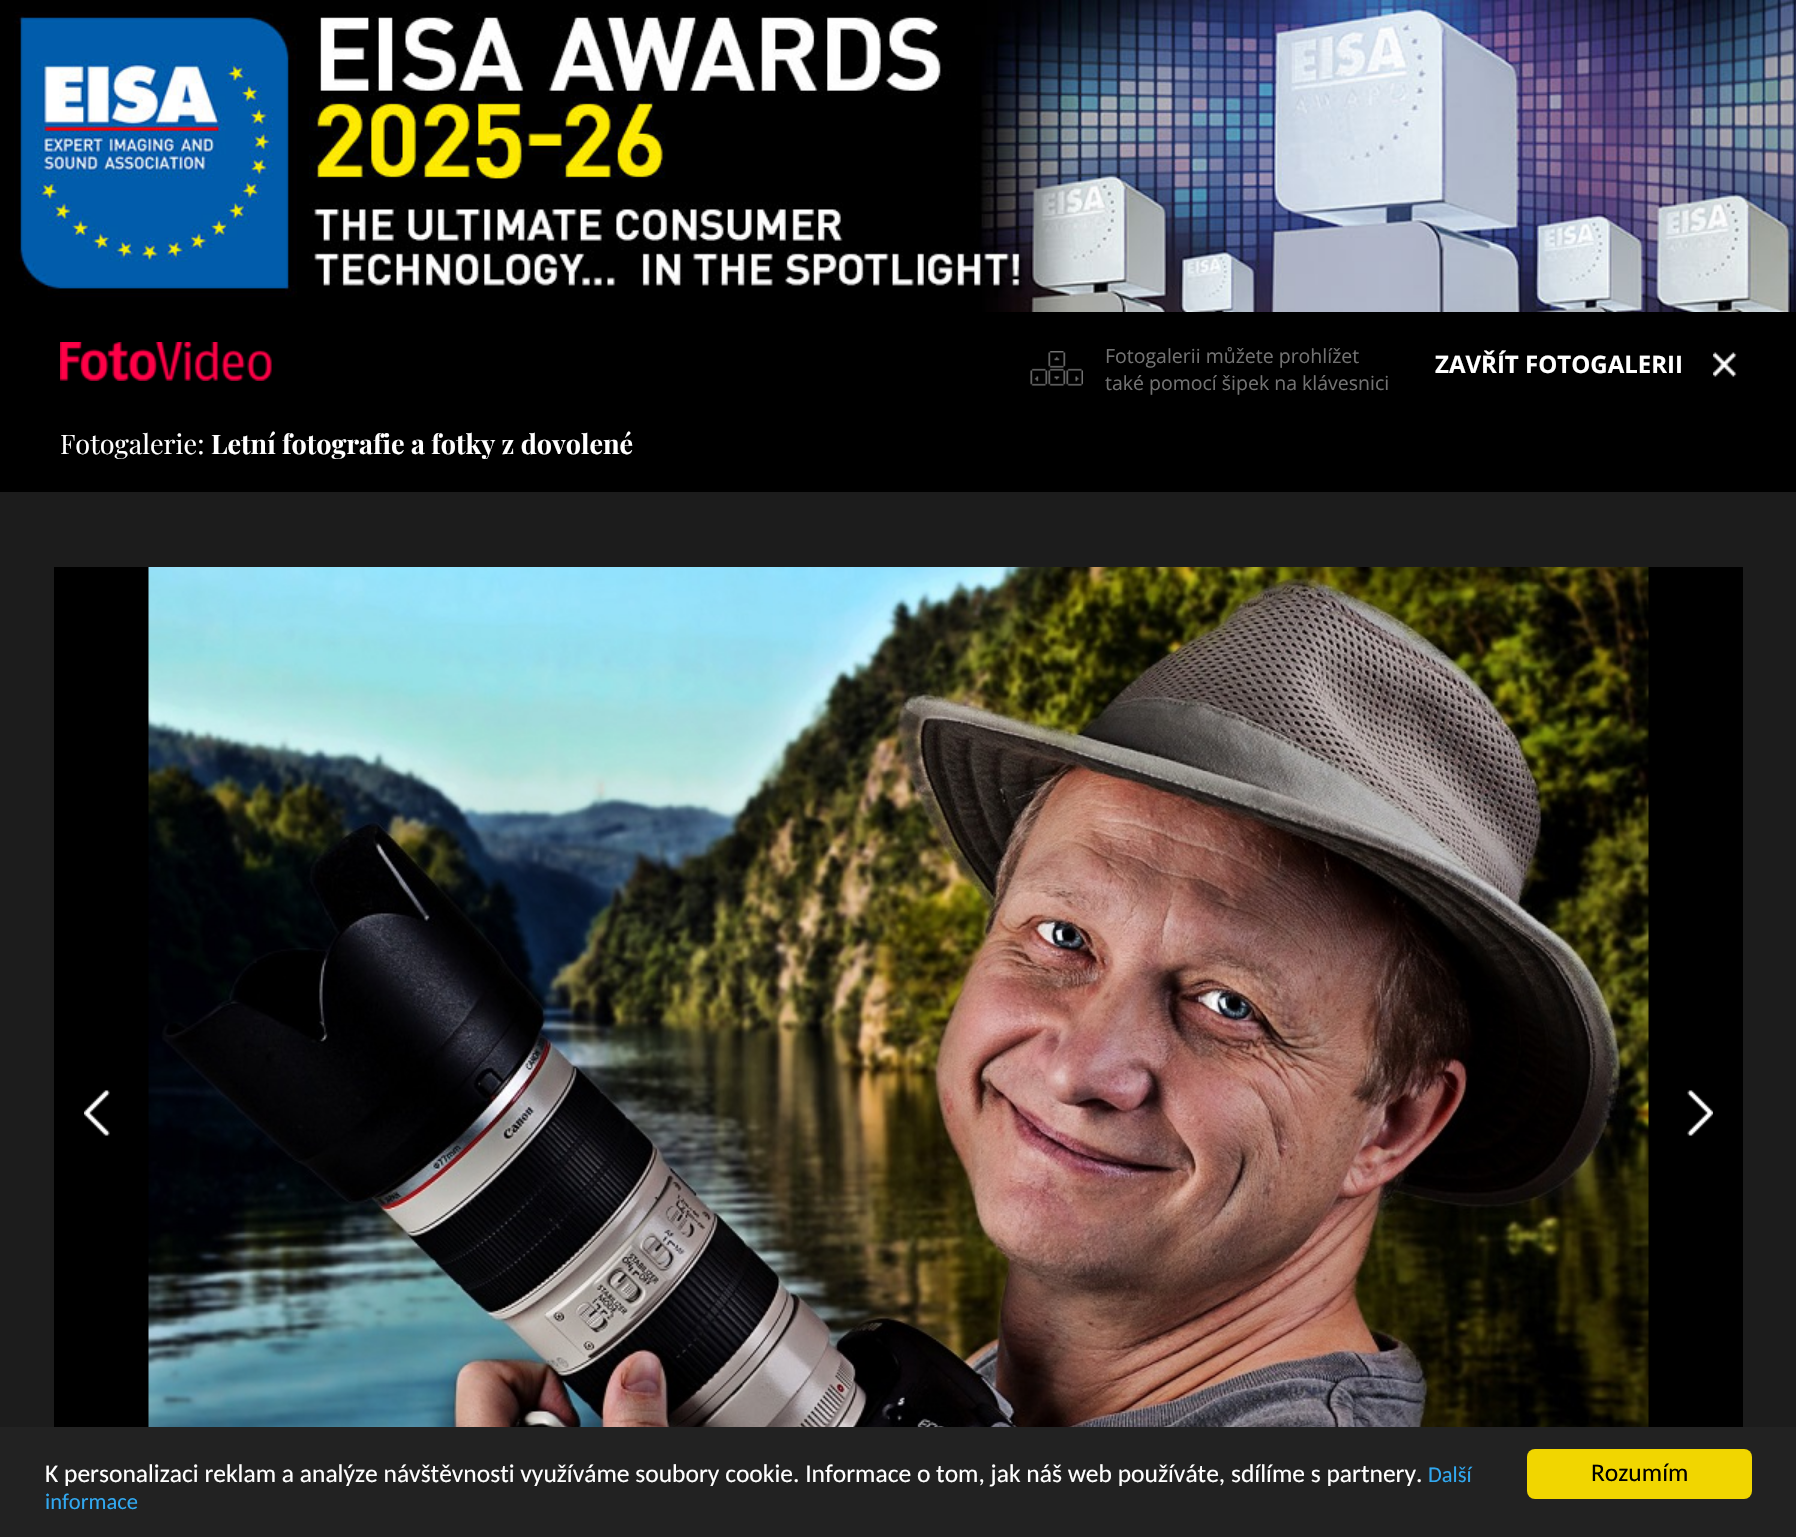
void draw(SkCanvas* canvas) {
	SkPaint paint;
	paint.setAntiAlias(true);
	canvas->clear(0xff000000);
	canvas->drawImageRect(SkImages::DeferredFromEncodedData(SkData::MakeFromFileName("img1.png")), SkRect::MakeXYWH(14, 0, 1782, 312), SkSamplingOptions());
	canvas->drawImageRect(SkImages::DeferredFromEncodedData(SkData::MakeFromFileName("img2.png")), SkRect::MakeXYWH(60, 342, 212, 39), SkSamplingOptions());
	canvas->drawImageRect(SkImages::DeferredFromEncodedData(SkData::MakeFromFileName("img3.png")), SkRect::MakeXYWH(1030, 351, 53, 35), SkSamplingOptions());
	SkFont f1(fontMgr->matchFamilyStyle("Open Sans", SkFontStyle::Normal()), 19.5);
	f1.setSubpixel(true);
	paint.setColor(0xff727272);
	canvas->drawString("Fotogalerii můžete prohlížet", 1105, 363, f1, paint);
	canvas->drawString("také pomocí šipek na klávesnici", 1105, 390, f1, paint);
	SkFont f2(fontMgr->matchFamilyStyle("Open Sans", SkFontStyle::Bold()), 24);
	f2.setSubpixel(true);
	paint.setColor(0xffffffff);
	canvas->drawString("ZAVŘÍT FOTOGALERII", 1435, 373, f2, paint);
	canvas->drawImageRect(SkImages::DeferredFromEncodedData(SkData::MakeFromFileName("img4.png")), SkRect::MakeXYWH(1713, 352, 24, 25), SkSamplingOptions());
	SkFont f3(fontMgr->matchFamilyStyle("Playfair Display", SkFontStyle::Normal()), 27);
	f3.setSubpixel(true);
	canvas->drawString("Fotogalerie:", 60, 454, f3, paint);
	SkFont f4(fontMgr->matchFamilyStyle("Playfair Display", SkFontStyle::Bold()), 27);
	f4.setSubpixel(true);
	canvas->drawString("Letní fotografie a fotky z dovolené", 211, 454, f4, paint);
	paint.setColor(0xff1c1c1c);
	canvas->drawRect(SkRect::MakeXYWH(0, 492, 1796, 935), paint);
	paint.setColor(0xff000000);
	canvas->drawRect(SkRect::MakeXYWH(54, 567, 1689, 860), paint);
	canvas->drawImageRect(SkImages::DeferredFromEncodedData(SkData::MakeFromFileName("img5.png")), SkRect::MakeXYWH(148, 567, 1501, 860), SkSamplingOptions());
	canvas->drawImageRect(SkImages::DeferredFromEncodedData(SkData::MakeFromFileName("img6.png")), SkRect::MakeXYWH(84, 1090, 26, 46), SkSamplingOptions());
	canvas->drawImageRect(SkImages::DeferredFromEncodedData(SkData::MakeFromFileName("img7.png")), SkRect::MakeXYWH(1687, 1090, 26, 46), SkSamplingOptions());
	paint.setColor(0xff222222);
	canvas->drawRect(SkRect::MakeXYWH(0, 1427, 1796, 110), paint);
	SkFont f5(fontMgr->matchFamilyStyle("Carlito", SkFontStyle::Normal()), 25.5);
	f5.setSubpixel(true);
	paint.setColor(0xffffffff);
	canvas->drawString("K personalizaci reklam a analýze návštěvnosti využíváme soubory cookie. Informace o tom, jak náš web používáte, sdílíme s partnery.", 45, 1482, f5, paint);
	SkFont f6(fontMgr->matchFamilyStyle("Carlito", SkFontStyle::Normal()), 22.5);
	f6.setSubpixel(true);
	paint.setColor(0xff31a8f0);
	canvas->drawString("Další", 1428, 1482, f6, paint);
	canvas->drawString("informace", 45, 1509, f6, paint);
	paint.setColor(0xfff1d600);
	canvas->drawRoundRect(SkRect::MakeXYWH(1527, 1449, 225, 50), 8, 8, paint);
	paint.setColor(0xff000000);
	canvas->drawString("Rozumím", 1591, 1481, f5, paint);
}
